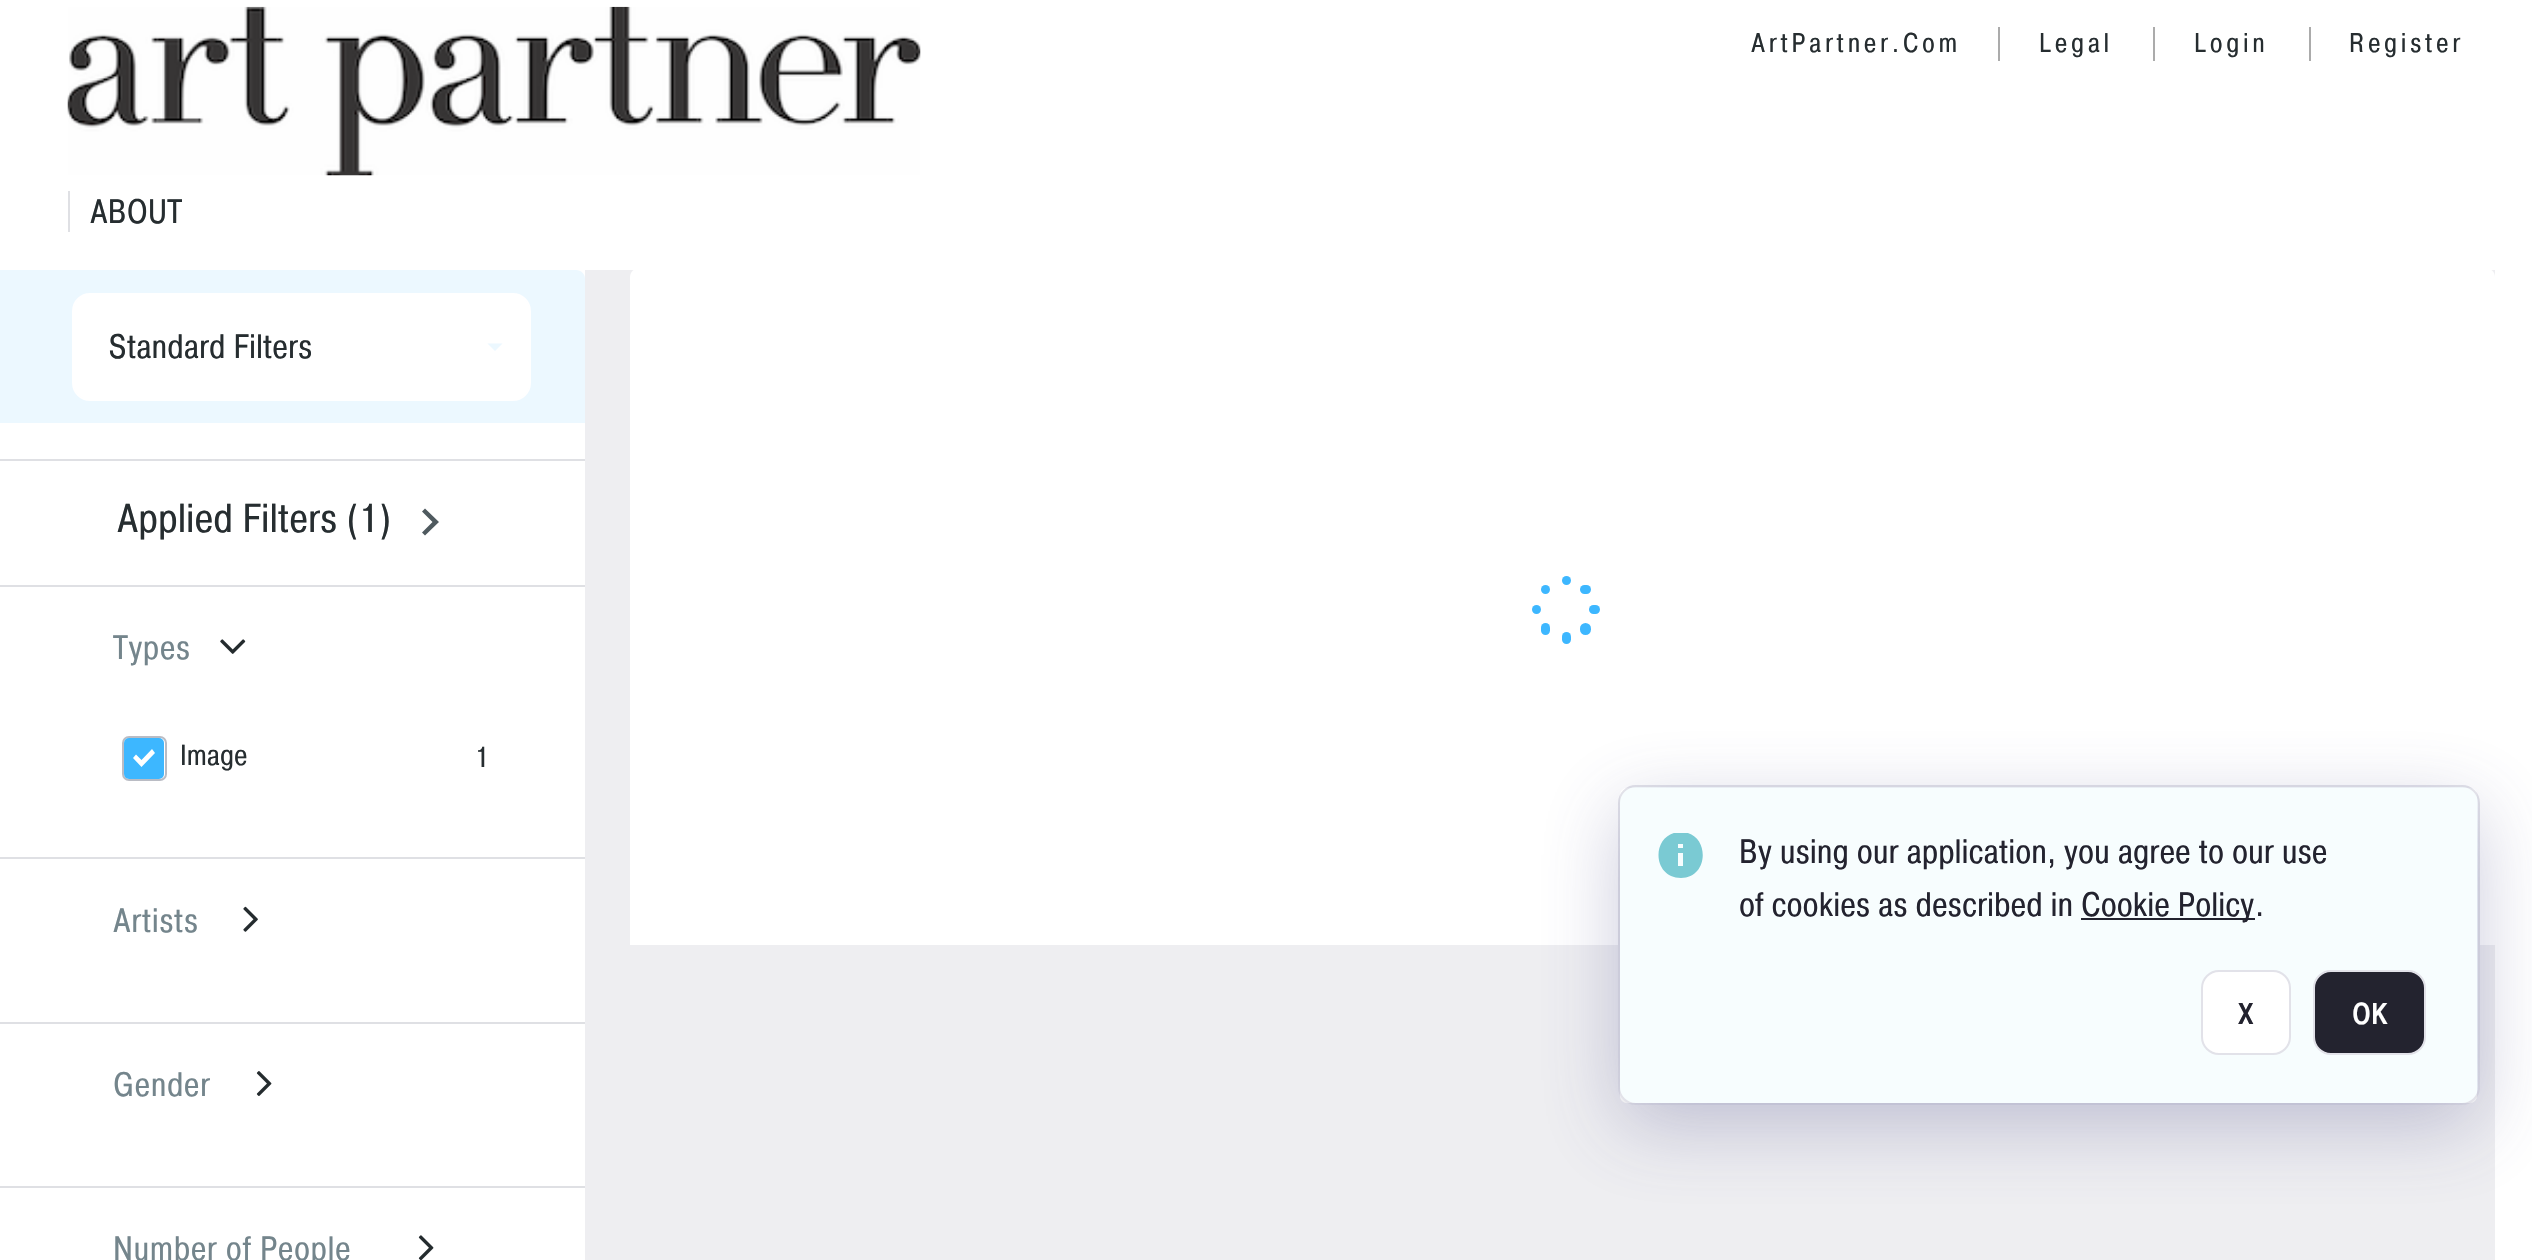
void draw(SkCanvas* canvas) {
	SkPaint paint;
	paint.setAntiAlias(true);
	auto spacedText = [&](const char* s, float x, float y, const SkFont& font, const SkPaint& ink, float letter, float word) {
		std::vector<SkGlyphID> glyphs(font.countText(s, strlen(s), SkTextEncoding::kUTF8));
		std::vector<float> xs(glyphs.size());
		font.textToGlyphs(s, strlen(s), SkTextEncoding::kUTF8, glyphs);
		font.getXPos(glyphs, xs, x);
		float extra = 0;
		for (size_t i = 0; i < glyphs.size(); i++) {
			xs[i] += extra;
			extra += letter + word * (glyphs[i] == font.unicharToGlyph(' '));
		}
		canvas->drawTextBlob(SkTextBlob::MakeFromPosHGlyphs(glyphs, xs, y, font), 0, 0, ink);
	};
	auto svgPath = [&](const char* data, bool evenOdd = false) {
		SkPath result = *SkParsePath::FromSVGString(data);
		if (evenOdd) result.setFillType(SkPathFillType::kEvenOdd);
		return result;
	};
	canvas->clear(0xffffffff);
	canvas->drawImageRect(SkImages::DeferredFromEncodedData(SkData::MakeFromFileName("img1.png")), SkRect::MakeXYWH(67, 6, 854, 170), SkSamplingOptions());
	SkFont f1(fontMgr->matchFamilyStyle("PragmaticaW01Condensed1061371", SkFontStyle::Normal()), 27);
	f1.setSubpixel(true);
	paint.setColor(0xff262d30);
	spacedText("ArtPartner.Com", 1751, 52, f1, paint, 3.6, 0);
	paint.setColor(0xffababab);
	canvas->drawRect(SkRect::MakeXYWH(1998, 27, 2, 34), paint);
	paint.setColor(0xff262d30);
	spacedText("Legal", 2039, 52, f1, paint, 3.6, 0);
	paint.setColor(0xffababab);
	canvas->drawRect(SkRect::MakeXYWH(2153, 27, 2, 34), paint);
	paint.setColor(0xff262d30);
	spacedText("Login", 2194, 52, f1, paint, 3.6, 0);
	paint.setColor(0xffababab);
	canvas->drawRect(SkRect::MakeXYWH(2309, 27, 2, 34), paint);
	paint.setColor(0xff262d30);
	spacedText("Register", 2349, 52, f1, paint, 3.6, 0);
	paint.setColor(0xffdfe0e4);
	canvas->drawRect(SkRect::MakeXYWH(68, 191, 2, 41), paint);
	SkFont f2(fontMgr->matchFamilyStyle("PragmaticaW01Condensed1061371", SkFontStyle::Normal()), 33.75);
	f2.setSubpixel(true);
	paint.setColor(0xff262d30);
	canvas->drawString("ABOUT", 90, 223, f2, paint);
	paint.setColor(0xffeeeef1);
	canvas->drawRect(SkRect::MakeXYWH(585, 270, 1910, 990), paint);
	paint.setColor(0xffffffff);
	canvas->drawPath(svgPath("M639 268H2486C2491 268 2495 272 2495 277V425H630V277C630 272 634 268 639 268Z"), paint);
	paint.setColor(0xffecf8ff);
	canvas->drawPath(svgPath("M0 270H576C581 270 585 274 585 279V423H0Z"), paint);
	paint.setColor(0xffffffff);
	canvas->drawRoundRect(SkRect::MakeXYWH(73, 294, 457, 106), 17, 17, paint);
	paint.setStroke(true);
	paint.setStrokeWidth(2);
	canvas->drawRoundRect(SkRect::MakeXYWH(73, 294, 457, 106), 17, 17, paint);
	paint.setStroke(false);
	paint.setColor(0xff262d30);
	canvas->drawString("Standard Filters", 108, 358, f2, paint);
	paint.setColor(0xffecf8ff);
	canvas->drawPath(svgPath("M487.5 343.5L495 351L502.5 343.5Z"), paint);
	paint.setColor(0xffdfe0e4);
	canvas->drawRect(SkRect::MakeXYWH(0, 459, 585, 2), paint);
	SkFont f3(fontMgr->matchFamilyStyle("PragmaticaW01Condensed1061371", SkFontStyle::Normal()), 40.5);
	f3.setSubpixel(true);
	paint.setColor(0xff262d30);
	canvas->drawString("Applied Filters (1)", 117, 532, f3, paint);
	paint.setColor(0xff4f5a5f);
	canvas->drawPath(svgPath("M422 532.5L425 535.5L439 522L425 508.5L422 511.5L432.5 522Z"), paint);
	paint.setColor(0xffdfe0e4);
	canvas->drawRect(SkRect::MakeXYWH(0, 585, 585, 2), paint);
	canvas->save();
	canvas->clipRect(SkRect::MakeXYWH(113, 621, 99, 59));
	paint.setColor(0xff74858c);
	spacedText("Types", 113, 659, f2, paint, 0.5, 0);
	canvas->restore();
	canvas->drawImageRect(SkImages::DeferredFromEncodedData(SkData::MakeFromFileName("img2.png")), SkRect::MakeXYWH(220, 639, 26, 15), SkSamplingOptions());
	paint.setStroke(true);
	paint.setColor(0xffbabcc4);
	canvas->drawRoundRect(SkRect::MakeXYWH(123, 737, 43, 43), 6, 6, paint);
	paint.setStroke(false);
	paint.setColor(0xff3db7ff);
	canvas->drawRoundRect(SkRect::MakeXYWH(124, 738, 40, 41), 5, 5, paint);
	paint.setColor(0xffffffff);
	canvas->drawPath(svgPath("M136 754.5L141.5 760L152 749L155 753L141.5 767L133 758Z", true), paint);
	SkFont f4(fontMgr->matchFamilyStyle("PragmaticaW01Condensed1061371", SkFontStyle::Normal()), 29);
	f4.setSubpixel(true);
	paint.setColor(0xff262d30);
	canvas->drawString("Image", 180, 765, f4, paint);
	spacedText("1", 475, 767, f4, paint, 0.5, 0);
	paint.setColor(0xffdfe0e4);
	canvas->drawRect(SkRect::MakeXYWH(0, 857, 585, 2), paint);
	paint.setColor(0xff74858c);
	spacedText("Artists", 113, 932, f2, paint, 0.5, 0);
	canvas->drawImageRect(SkImages::DeferredFromEncodedData(SkData::MakeFromFileName("img3.png")), SkRect::MakeXYWH(243, 906, 15, 26), SkSamplingOptions());
	paint.setColor(0xffdfe0e4);
	canvas->drawRect(SkRect::MakeXYWH(0, 1022, 585, 2), paint);
	paint.setColor(0xff74858c);
	spacedText("Gender", 113, 1096, f2, paint, 0.5, 0);
	canvas->drawImageRect(SkImages::DeferredFromEncodedData(SkData::MakeFromFileName("img4.png")), SkRect::MakeXYWH(256, 1071, 16, 25), SkSamplingOptions());
	paint.setColor(0xffdfe0e4);
	canvas->drawRect(SkRect::MakeXYWH(0, 1186, 585, 2), paint);
	paint.setColor(0xff74858c);
	spacedText("Number of People", 113, 1260, f2, paint, 0.5, 0);
	canvas->drawImageRect(SkImages::DeferredFromEncodedData(SkData::MakeFromFileName("img5.png")), SkRect::MakeXYWH(418, 1235, 16, 25), SkSamplingOptions());
	paint.setColor(0xffffffff);
	canvas->drawPath(svgPath("M639 270H2486C2491 270 2495 274 2495 279V945H630V279C630 274 634 270 639 270Z"), paint);
	paint.setColor(0xff3db7ff);
	canvas->drawCircle(1566.5, 580.5, 4.5, paint);
	canvas->drawCircle(1545.5, 589.5, 4.5, paint);
	canvas->drawRoundRect(SkRect::MakeXYWH(1580, 585, 11, 9), 4.5, 4.5, paint);
	canvas->drawCircle(1536.5, 609.5, 4.5, paint);
	canvas->drawRoundRect(SkRect::MakeXYWH(1589, 605, 11, 9), 4.5, 4.5, paint);
	canvas->drawRoundRect(SkRect::MakeXYWH(1541, 623, 9, 12), 4.5, 4.5, paint);
	canvas->drawRoundRect(SkRect::MakeXYWH(1580, 623, 11, 12), 5.5, 5.5, paint);
	canvas->drawRoundRect(SkRect::MakeXYWH(1562, 632, 9, 12), 4.5, 4.5, paint);
	paint.setColor(0xfff7fdfe);
	canvas->drawRoundRect(SkRect::MakeXYWH(1619, 786, 860, 318), 17, 17, paint);
	paint.setStroke(true);
	paint.setColor(0xffe2e2e9);
	canvas->drawRoundRect(SkRect::MakeXYWH(1619, 786, 860, 318), 17, 17, paint);
	canvas->save();
	canvas->clipPath(svgPath("M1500 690H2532V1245H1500ZM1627 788H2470C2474 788 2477 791 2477 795V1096C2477 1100 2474 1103 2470 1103H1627C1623 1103 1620 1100 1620 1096V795C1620 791 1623 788 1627 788Z", true), true);
	paint.setStroke(false);
	paint.setColor(0x4d4d4d87);
	paint.setMaskFilter(SkMaskFilter::MakeBlur(kNormal_SkBlurStyle, 39.5));
	canvas->drawRoundRect(SkRect::MakeXYWH(1620, 810, 857, 315), 7, 7, paint);
	paint.setMaskFilter(nullptr);
	canvas->restore();
	canvas->save();
	canvas->clipRect(SkRect::MakeXYWH(1658, 833, 45, 45));
	paint.setColor(0xff7acad3);
	canvas->drawPath(svgPath("M1681 832C1651 832 1651 878 1681 878C1710 878 1710 832 1681 832ZM1683 866H1678V853H1683ZM1683 848H1678V844H1683Z"), paint);
	canvas->restore();
	paint.setColor(0xff23232f);
	canvas->drawString("By using our application, you agree to our use", 1739, 863, f2, paint);
	canvas->drawString("of cookies as described in", 1739, 916, f2, paint);
	canvas->drawRect(SkRect::MakeXYWH(2081, 918, 174, 2), paint);
	canvas->drawString("Cookie Policy", 2081, 916, f2, paint);
	canvas->drawString(".", 2255, 916, f2, paint);
	paint.setColor(0xffffffff);
	canvas->drawRoundRect(SkRect::MakeXYWH(2202, 971, 88, 83), 17, 17, paint);
	paint.setStroke(true);
	paint.setColor(0xffe2e2e9);
	canvas->drawRoundRect(SkRect::MakeXYWH(2202, 971, 88, 83), 17, 17, paint);
	SkFont f5(fontMgr->matchFamilyStyle("PragmaticaW01Condensed1061371", SkFontStyle::Bold()), 29);
	f5.setSubpixel(true);
	paint.setStroke(false);
	paint.setColor(0xff23232f);
	spacedText("X", 2238, 1024, f5, paint, 1, 0);
	canvas->drawRoundRect(SkRect::MakeXYWH(2314, 971, 111, 83), 17, 17, paint);
	paint.setStroke(true);
	paint.setColor(0xffe2e2e9);
	canvas->drawRoundRect(SkRect::MakeXYWH(2314, 971, 111, 83), 17, 17, paint);
	paint.setStroke(false);
	paint.setColor(0xffffffff);
	spacedText("OK", 2352, 1024, f5, paint, 1, 0);
}
